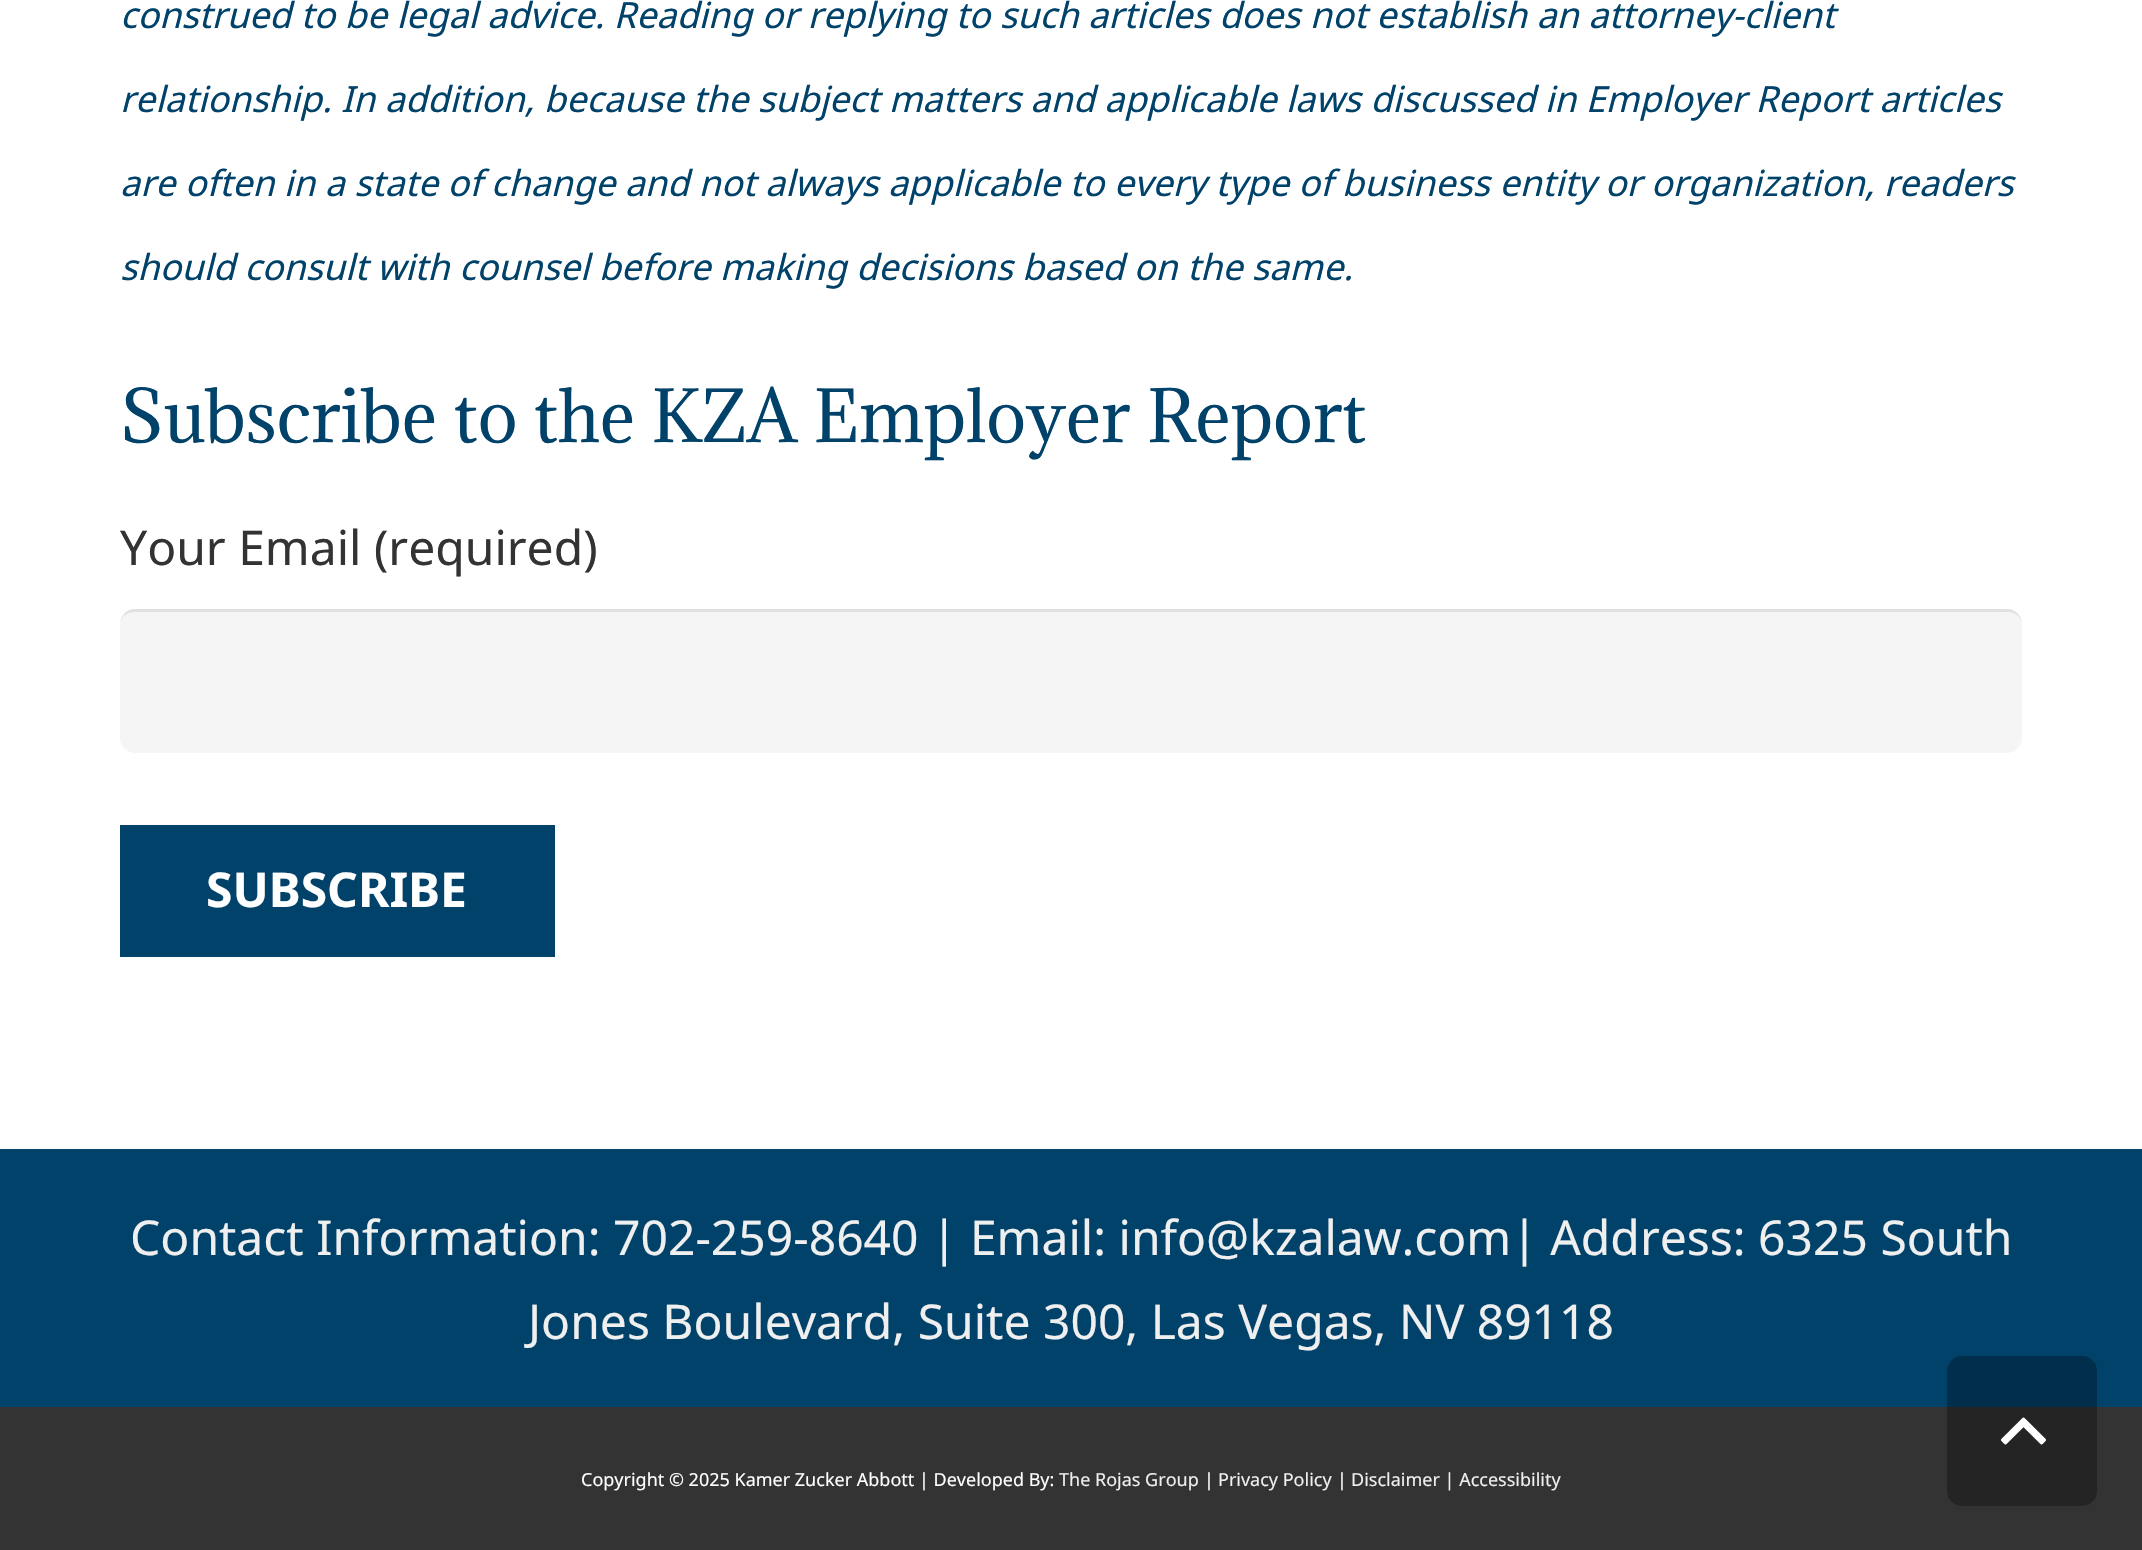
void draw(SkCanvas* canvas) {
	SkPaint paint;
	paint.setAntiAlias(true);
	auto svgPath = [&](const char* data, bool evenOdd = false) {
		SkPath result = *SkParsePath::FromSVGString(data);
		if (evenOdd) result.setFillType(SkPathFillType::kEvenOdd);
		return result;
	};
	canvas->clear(0xffffffff);
	SkFont f1(fontMgr->matchFamilyStyle("Noto Sans", SkFontStyle::Italic()), 36);
	f1.setSubpixel(true);
	paint.setColor(0xff01426a);
	canvas->drawString("construed to be legal advice. Reading or replying to such articles does not establish an attorney-client", 120, 28, f1, paint);
	canvas->drawString("relationship. In addition, because the subject matters and applicable laws discussed in Employer Report articles", 120, 112, f1, paint);
	canvas->drawString("are often in a state of change and not always applicable to every type of business entity or organization, readers", 120, 196, f1, paint);
	canvas->drawString("should consult with counsel before making decisions based on the same.", 120, 280, f1, paint);
	SkFont f2(fontMgr->matchFamilyStyle("Adamina", SkFontStyle::Normal()), 67.25);
	f2.setSubpixel(true);
	canvas->drawString("Subscribe to the KZA Employer Report", 120, 442, f2, paint);
	SkFont f3(fontMgr->matchFamilyStyle("Noto Sans", SkFontStyle::Normal()), 48);
	f3.setSubpixel(true);
	paint.setColor(0xff333333);
	canvas->drawString("Your Email (required)", 120, 565, f3, paint);
	paint.setColor(0xfff5f5f5);
	canvas->drawRoundRect(SkRect::MakeXYWH(120, 609, 1902, 144), 15, 15, paint);
	paint.setColor(0x14000000);
	canvas->drawPath(svgPath("M134 612H2008C2016 612 2022 618 2022 626C2022 617 2017 609 2007 609H135C125 609 120 617 120 626C120 618 126 612 134 612Z"), paint);
	paint.setColor(0xff01426a);
	canvas->drawRect(SkRect::MakeXYWH(120, 825, 435, 132), paint);
	SkFont f4(fontMgr->matchFamilyStyle("Noto Sans", SkFontStyle::Bold()), 48);
	f4.setSubpixel(true);
	paint.setColor(0xffffffff);
	canvas->drawString("SUBSCRIBE", 206, 907, f4, paint);
	paint.setColor(0xff01426a);
	canvas->drawRect(SkRect::MakeXYWH(0, 1149, 2142, 258), paint);
	paint.setColor(0xffefefef);
	canvas->drawString("Contact Information: 702-259-8640 | Email: info@kzalaw.com| Address: 6325 South", 130, 1255, f3, paint);
	canvas->drawString("Jones Boulevard, Suite 300, Las Vegas, NV 89118", 528, 1339, f3, paint);
	paint.setColor(0xff333333);
	canvas->drawRect(SkRect::MakeXYWH(0, 1407, 2142, 143), paint);
	SkFont f5(fontMgr->matchFamilyStyle("Noto Sans", SkFontStyle::Normal()), 18);
	f5.setSubpixel(true);
	paint.setColor(0xffffffff);
	canvas->drawString("Copyright © 2025 Kamer Zucker Abbott | Developed By:", 581, 1486, f5, paint);
	paint.setColor(0xffefefef);
	canvas->drawString("The Rojas Group", 1059, 1486, f5, paint);
	paint.setColor(0xffffffff);
	canvas->drawString("|", 1204, 1486, f5, paint);
	paint.setColor(0xffefefef);
	canvas->drawString("Privacy Policy", 1218, 1486, f5, paint);
	paint.setColor(0xffffffff);
	canvas->drawString("|", 1337, 1486, f5, paint);
	paint.setColor(0xffefefef);
	canvas->drawString("Disclaimer | Accessibility", 1351, 1486, f5, paint);
	paint.setColor(0x4d000000);
	canvas->drawRoundRect(SkRect::MakeXYWH(1947, 1356, 150, 150), 15, 15, paint);
	canvas->drawImageRect(SkImages::DeferredFromEncodedData(SkData::MakeFromFileName("img1.png")), SkRect::MakeXYWH(2001, 1417, 45, 28), SkSamplingOptions());
}
